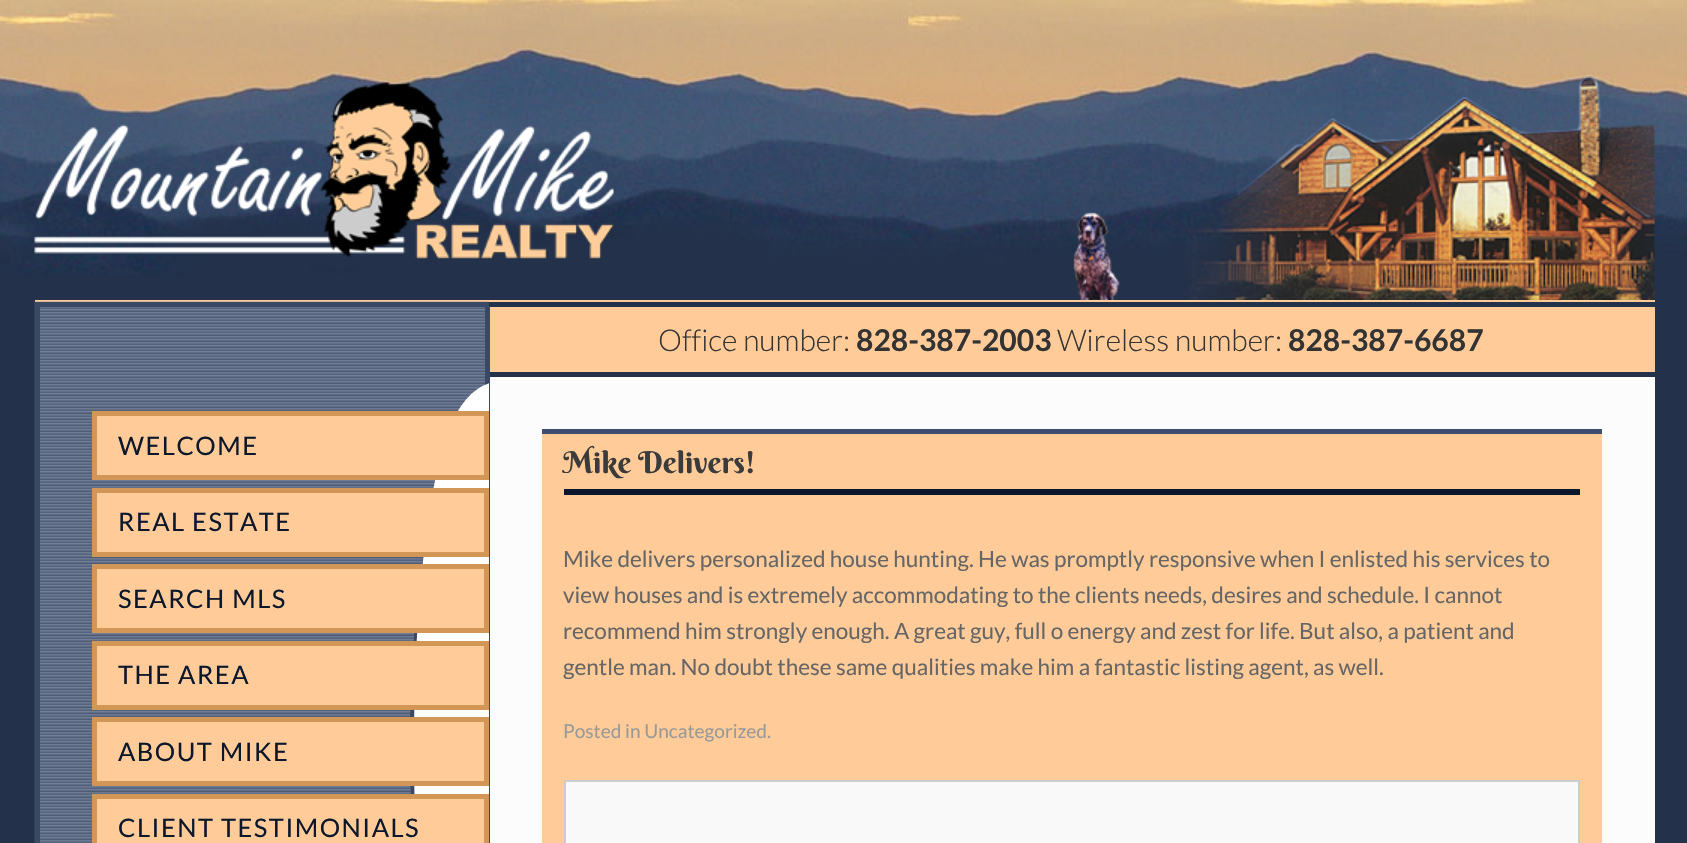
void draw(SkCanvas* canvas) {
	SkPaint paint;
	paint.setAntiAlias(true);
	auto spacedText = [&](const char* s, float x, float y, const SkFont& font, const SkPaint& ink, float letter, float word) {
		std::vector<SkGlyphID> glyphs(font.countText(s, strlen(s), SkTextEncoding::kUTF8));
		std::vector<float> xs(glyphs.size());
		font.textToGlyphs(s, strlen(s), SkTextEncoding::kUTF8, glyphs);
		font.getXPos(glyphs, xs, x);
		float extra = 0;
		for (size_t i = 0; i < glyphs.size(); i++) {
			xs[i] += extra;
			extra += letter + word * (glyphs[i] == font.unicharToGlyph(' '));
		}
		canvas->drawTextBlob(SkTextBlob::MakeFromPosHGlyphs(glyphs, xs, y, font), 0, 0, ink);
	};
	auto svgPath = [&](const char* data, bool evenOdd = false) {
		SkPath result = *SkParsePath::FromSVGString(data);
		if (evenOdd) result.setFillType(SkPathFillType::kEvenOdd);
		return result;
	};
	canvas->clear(0xff24314a);
	canvas->drawImageRect(SkImages::DeferredFromEncodedData(SkData::MakeFromFileName("img1.png")), SkRect::MakeXYWH(0, 0, 1687, 276), SkSamplingOptions());
	canvas->drawImageRect(SkImages::DeferredFromEncodedData(SkData::MakeFromFileName("img2.png")), SkRect::MakeXYWH(1073, 76, 582, 224), SkSamplingOptions());
	canvas->drawImageRect(SkImages::DeferredFromEncodedData(SkData::MakeFromFileName("img3.png")), SkRect::MakeXYWH(34, 82, 580, 177), SkSamplingOptions());
	paint.setColor(0xfffcfcfc);
	canvas->drawRect(SkRect::MakeXYWH(490, 377, 1165, 466), paint);
	paint.setColor(0xffffcc99);
	canvas->drawRect(SkRect::MakeXYWH(35, 300, 1620, 2), paint);
	canvas->drawRect(SkRect::MakeXYWH(490, 307, 1165, 65), paint);
	SkFont f1(fontMgr->matchFamilyStyle("Lato", SkFontStyle(300, SkFontStyle::kNormal_Width, SkFontStyle::kUpright_Slant)), 30);
	f1.setSubpixel(true);
	paint.setColor(0xff333333);
	canvas->drawString("Office number:", 658, 351, f1, paint);
	SkFont f2(fontMgr->matchFamilyStyle("Lato", SkFontStyle::Bold()), 30);
	f2.setSubpixel(true);
	canvas->drawString("828-387-2003", 856, 351, f2, paint);
	canvas->drawString("Wireless number:", 1057, 351, f1, paint);
	canvas->drawString("828-387-6687", 1288, 351, f2, paint);
	canvas->drawImageRect(SkImages::DeferredFromEncodedData(SkData::MakeFromFileName("img4.png")), SkRect::MakeXYWH(34, 301, 455, 542), SkSamplingOptions());
	paint.setColor(0xff394864);
	canvas->drawRect(SkRect::MakeXYWH(485, 306, 5, 537), paint);
	canvas->drawRect(SkRect::MakeXYWH(35, 302, 454, 5), paint);
	canvas->drawRect(SkRect::MakeXYWH(35, 302, 5, 541), paint);
	canvas->save();
	canvas->clipRect(SkRect::MakeXYWH(39, 306, 450, 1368));
	canvas->drawPath(svgPath("M500 381C450 381 410 546 410 748C410 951 450 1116 500 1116H502C453 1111 414 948 414 748C414 549 453 386 502 381Z"), paint);
	paint.setStroke(true);
	paint.setStrokeWidth(75);
	paint.setColor(0xffffffff);
	canvas->drawPath(svgPath("M504 418.5C533 418.5 556.5 566 556.5 748.5C556.5 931 533 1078.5 504 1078.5C475 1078.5 451.5 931 451.5 748.5C451.5 566 475 418.5 504 418.5Z"), paint);
	canvas->restore();
	paint.setStroke(false);
	paint.setColor(0xffffcc99);
	canvas->drawRect(SkRect::MakeXYWH(94.5, 413.5, 392, 64), paint);
	paint.setStroke(true);
	paint.setStrokeWidth(5);
	paint.setColor(0xffd29657);
	canvas->drawRect(SkRect::MakeXYWH(94.5, 413.5, 392, 64), paint);
	SkFont f3(fontMgr->matchFamilyStyle("Lato", SkFontStyle::Normal()), 25.5);
	f3.setSubpixel(true);
	paint.setStroke(false);
	paint.setColor(0xff0c172b);
	spacedText("WELCOME", 118, 455, f3, paint, 1.5, 0);
	paint.setColor(0xffffcc99);
	canvas->drawRect(SkRect::MakeXYWH(94.5, 490.5, 392, 64), paint);
	paint.setStroke(true);
	paint.setColor(0xffd29657);
	canvas->drawRect(SkRect::MakeXYWH(94.5, 490.5, 392, 64), paint);
	paint.setStroke(false);
	paint.setColor(0xff0c172b);
	spacedText("REAL ESTATE", 118, 531, f3, paint, 1.5, 0);
	paint.setColor(0xffffcc99);
	canvas->drawRect(SkRect::MakeXYWH(94.5, 566.5, 392, 64), paint);
	paint.setStroke(true);
	paint.setColor(0xffd29657);
	canvas->drawRect(SkRect::MakeXYWH(94.5, 566.5, 392, 64), paint);
	paint.setStroke(false);
	paint.setColor(0xff0c172b);
	spacedText("SEARCH MLS", 118, 608, f3, paint, 1.5, 0);
	paint.setColor(0xffffcc99);
	canvas->drawRect(SkRect::MakeXYWH(94.5, 643.5, 392, 64), paint);
	paint.setStroke(true);
	paint.setColor(0xffd29657);
	canvas->drawRect(SkRect::MakeXYWH(94.5, 643.5, 392, 64), paint);
	paint.setStroke(false);
	paint.setColor(0xff0c172b);
	spacedText("THE AREA", 118, 684, f3, paint, 1.5, 0);
	paint.setColor(0xffffcc99);
	canvas->drawRect(SkRect::MakeXYWH(94.5, 719.5, 392, 64), paint);
	paint.setStroke(true);
	paint.setColor(0xffd29657);
	canvas->drawRect(SkRect::MakeXYWH(94.5, 719.5, 392, 64), paint);
	paint.setStroke(false);
	paint.setColor(0xff0c172b);
	spacedText("ABOUT MIKE", 118, 761, f3, paint, 1.5, 0);
	paint.setColor(0xffffcc99);
	canvas->drawRect(SkRect::MakeXYWH(94.5, 796.5, 392, 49), paint);
	paint.setStroke(true);
	paint.setColor(0xffd29657);
	canvas->drawRect(SkRect::MakeXYWH(94.5, 796.5, 392, 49), paint);
	paint.setStroke(false);
	paint.setColor(0xff0c172b);
	spacedText("CLIENT TESTIMONIALS", 118, 837, f3, paint, 1.5, 0);
	paint.setColor(0xffffcc99);
	canvas->drawRect(SkRect::MakeXYWH(542, 434, 1060, 409), paint);
	paint.setColor(0xff3e4e70);
	canvas->drawRect(SkRect::MakeXYWH(542, 429, 1060, 5), paint);
	paint.setColor(0xff0d172c);
	canvas->drawRect(SkRect::MakeXYWH(564, 489, 1016, 6), paint);
	SkFont f4(fontMgr->matchFamilyStyle("Berkshire Swash", SkFontStyle::Normal()), 30);
	f4.setSubpixel(true);
	paint.setColor(0xff3b3b3b);
	canvas->drawString("Mike Delivers!", 563, 473, f4, paint);
	SkFont f5(fontMgr->matchFamilyStyle("Lato", SkFontStyle::Normal()), 22.5);
	f5.setSubpixel(true);
	paint.setColor(0xff666666);
	canvas->drawString("Mike delivers personalized house hunting. He was promptly responsive when I enlisted his services to", 563, 567, f5, paint);
	canvas->drawString("view houses and is extremely accommodating to the clients needs, desires and schedule. I cannot", 563, 603, f5, paint);
	canvas->drawString("recommend him strongly enough. A great guy, full o energy and zest for life. But also, a patient and", 563, 639, f5, paint);
	canvas->drawString("gentle man. No doubt these same qualities make him a fantastic listing agent, as well.", 563, 675, f5, paint);
	SkFont f6(fontMgr->matchFamilyStyle("Lato", SkFontStyle::Normal()), 19.1);
	f6.setSubpixel(true);
	paint.setColor(0xff999999);
	canvas->drawString("Posted in Uncategorized.", 563, 738, f6, paint);
	paint.setColor(0xfff9f9f9);
	canvas->drawRect(SkRect::MakeXYWH(565, 781, 1014, 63), paint);
	paint.setStroke(true);
	paint.setStrokeWidth(2);
	paint.setColor(0xffcccccc);
	canvas->drawRect(SkRect::MakeXYWH(565, 781, 1014, 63), paint);
}
